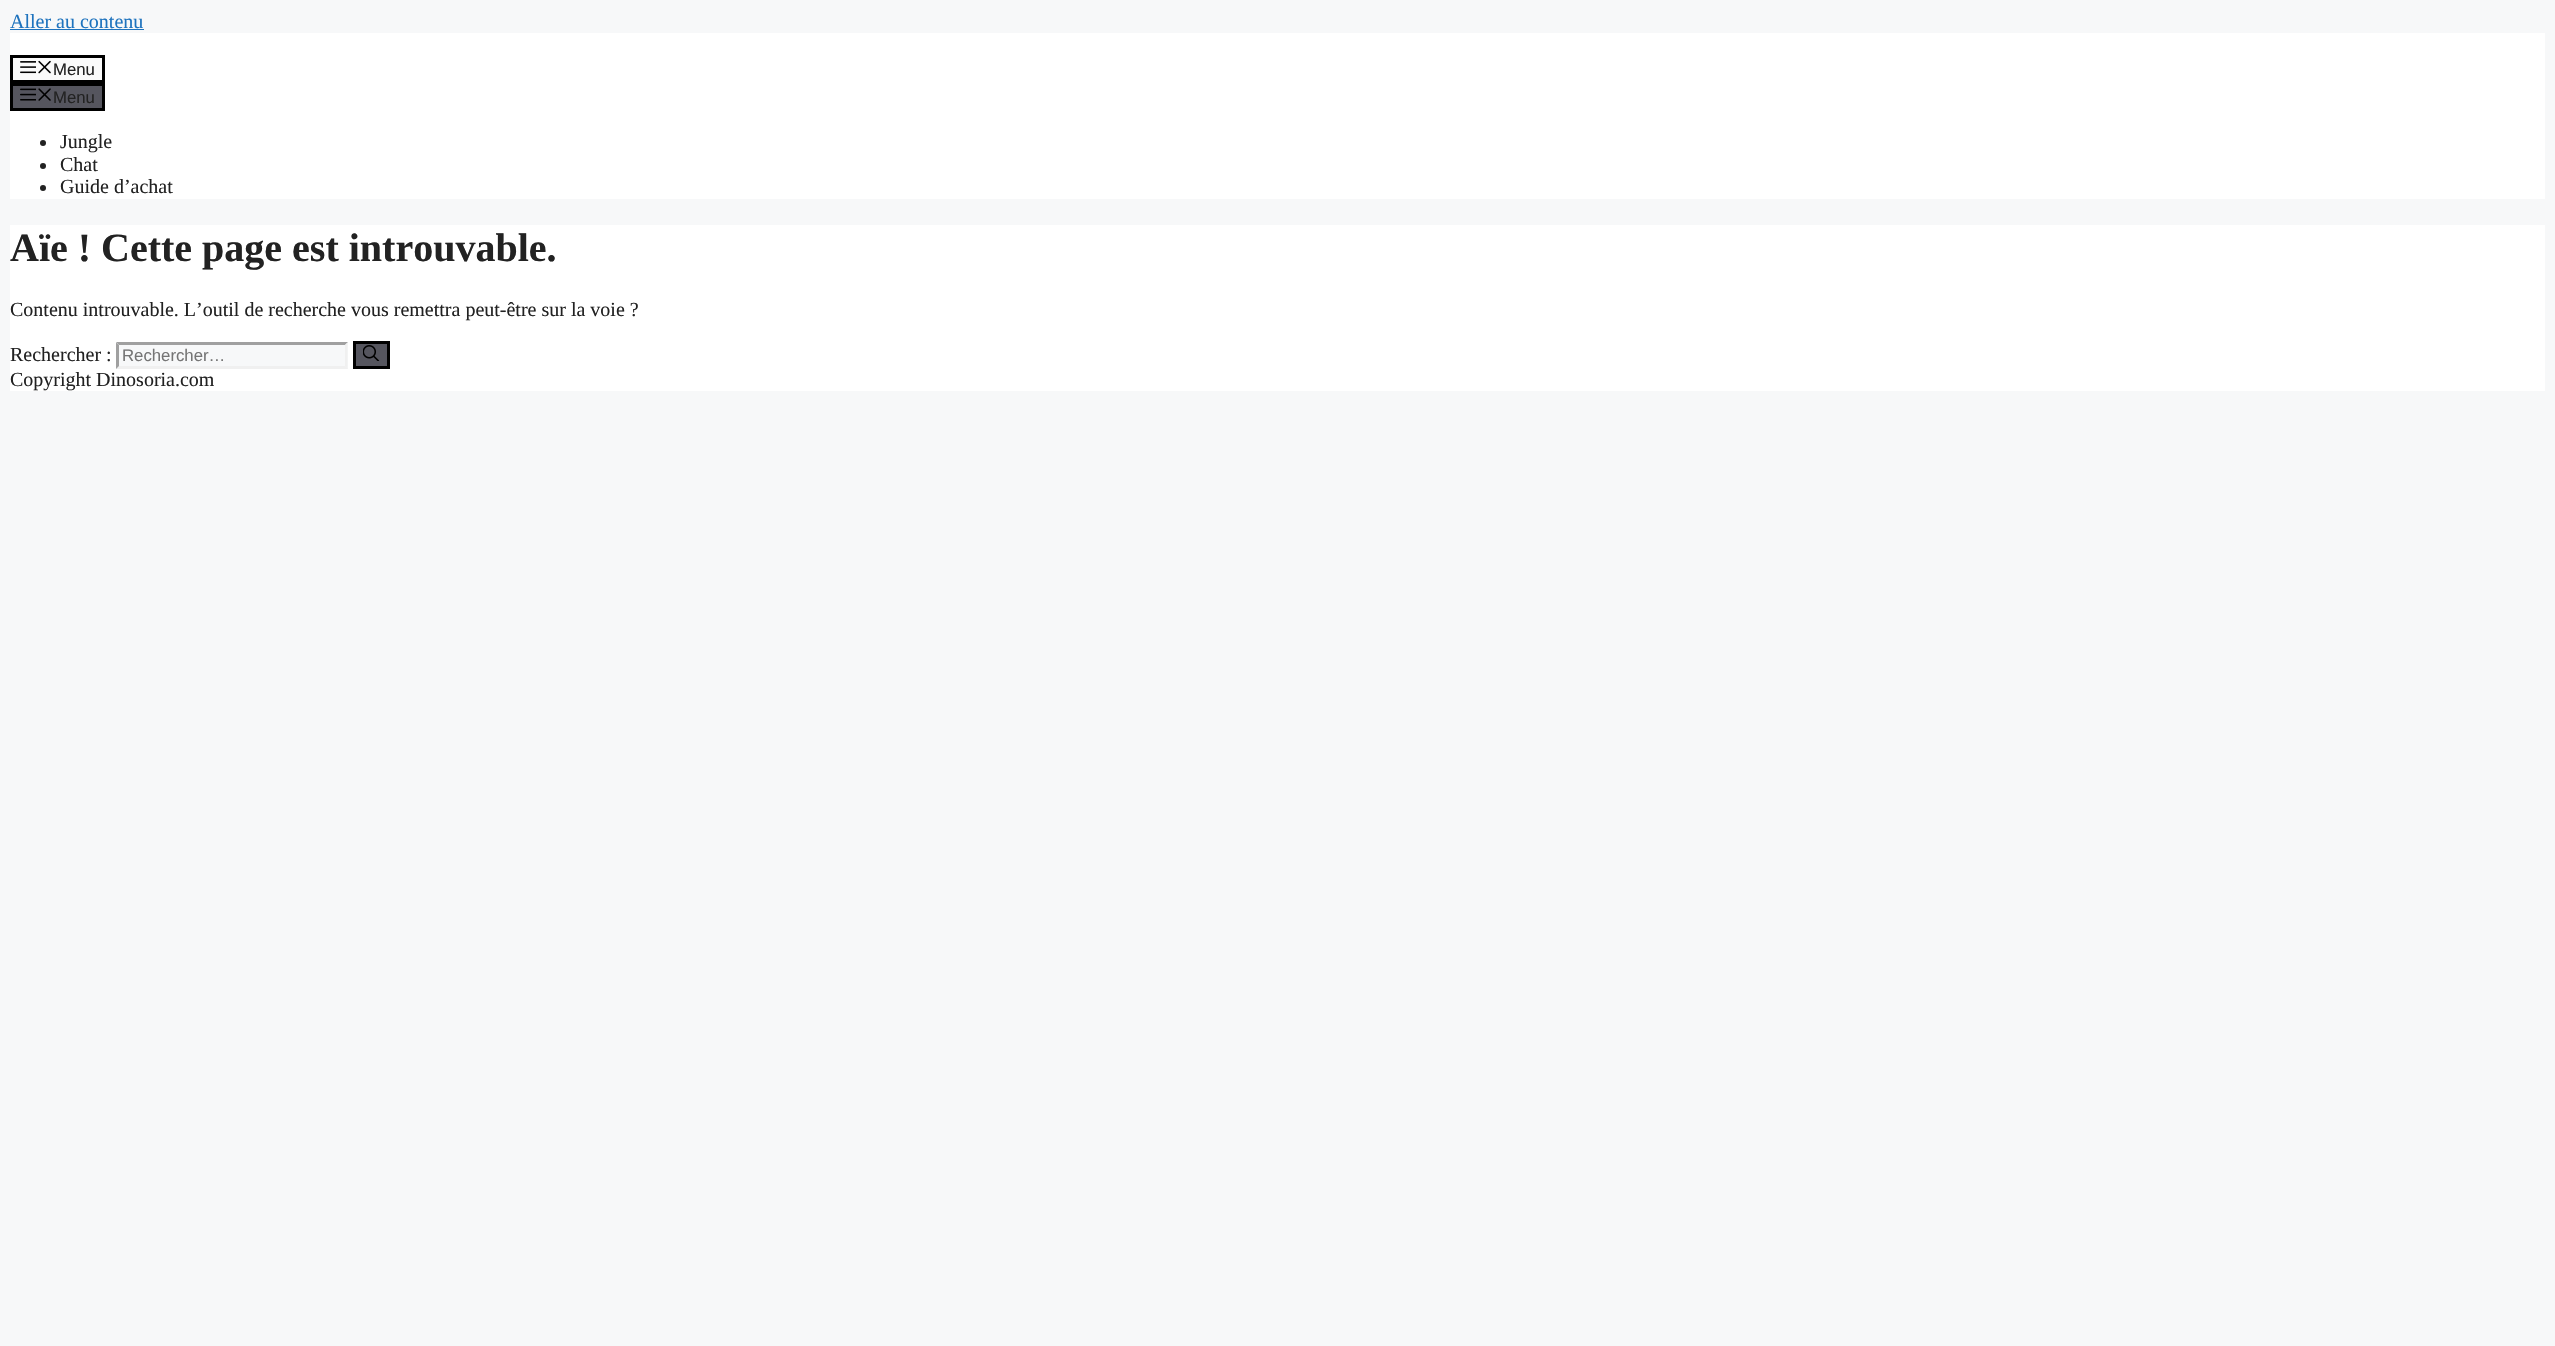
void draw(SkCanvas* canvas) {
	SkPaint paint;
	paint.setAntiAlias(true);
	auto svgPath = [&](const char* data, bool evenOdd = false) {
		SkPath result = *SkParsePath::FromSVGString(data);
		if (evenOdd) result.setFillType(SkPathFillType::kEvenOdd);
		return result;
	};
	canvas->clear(0xfff7f8f9);
	SkFont f1(fontMgr->matchFamilyStyle("Liberation Serif", SkFontStyle::Normal()), 20);
	f1.setSubpixel(true);
	paint.setColor(0xff1e73be);
	canvas->drawString("Aller au contenu", 10, 28, f1, paint);
	canvas->drawRect(SkRect::MakeXYWH(10, 29, 134, 1), paint);
	paint.setColor(0xffffffff);
	canvas->drawRect(SkRect::MakeXYWH(10, 33, 2535, 166), paint);
	paint.setColor(0xfffafafa);
	canvas->drawRect(SkRect::MakeXYWH(11.5, 56.5, 92, 25), paint);
	paint.setStroke(true);
	paint.setStrokeWidth(3);
	paint.setColor(0xff000000);
	canvas->drawRect(SkRect::MakeXYWH(11.5, 56.5, 92, 25), paint);
	canvas->drawImageRect(SkImages::DeferredFromEncodedData(SkData::MakeFromFileName("img1.png")), SkRect::MakeXYWH(20, 61, 16, 13), SkSamplingOptions());
	canvas->drawImageRect(SkImages::DeferredFromEncodedData(SkData::MakeFromFileName("img2.png")), SkRect::MakeXYWH(38, 60, 13, 14), SkSamplingOptions());
	SkFont f2(fontMgr->matchFamilyStyle("Liberation Sans", SkFontStyle::Normal()), 16.75);
	f2.setSubpixel(true);
	paint.setStroke(false);
	paint.setColor(0xff222222);
	canvas->drawString("Menu", 53, 75, f2, paint);
	paint.setColor(0xff55555e);
	canvas->drawRect(SkRect::MakeXYWH(11.5, 84.5, 92, 25), paint);
	paint.setStroke(true);
	paint.setColor(0xff000000);
	canvas->drawRect(SkRect::MakeXYWH(11.5, 84.5, 92, 25), paint);
	canvas->drawImageRect(SkImages::DeferredFromEncodedData(SkData::MakeFromFileName("img3.png")), SkRect::MakeXYWH(20, 88, 16, 13), SkSamplingOptions());
	canvas->drawImageRect(SkImages::DeferredFromEncodedData(SkData::MakeFromFileName("img4.png")), SkRect::MakeXYWH(38, 88, 13, 13), SkSamplingOptions());
	paint.setStroke(false);
	paint.setColor(0xff222222);
	canvas->drawString("Menu", 53, 103, f2, paint);
	canvas->drawCircle(43, 143, 3, paint);
	canvas->drawString("Jungle", 60, 148, f1, paint);
	canvas->drawCircle(43, 166, 3, paint);
	canvas->drawString("Chat", 60, 171, f1, paint);
	canvas->drawCircle(43, 188, 3, paint);
	canvas->drawString("Guide d’achat", 60, 193, f1, paint);
	paint.setColor(0xffffffff);
	canvas->drawRect(SkRect::MakeXYWH(10, 225, 2535, 166), paint);
	SkFont f3(fontMgr->matchFamilyStyle("Liberation Serif", SkFontStyle::Bold()), 40);
	f3.setSubpixel(true);
	paint.setColor(0xff222222);
	canvas->drawString("Aïe ! Cette page est introuvable.", 10, 261, f3, paint);
	canvas->drawString("Contenu introuvable. L’outil de recherche vous remettra peut-être sur la voie ?", 10, 316, f1, paint);
	canvas->drawString("Rechercher :", 10, 361, f1, paint);
	paint.setColor(0xfff7f8f9);
	canvas->drawRect(SkRect::MakeXYWH(116, 343, 232, 26), paint);
	paint.setColor(0xffa0a0a0);
	canvas->drawPath(svgPath("M116 342H348L345 345H119Z"), paint);
	paint.setColor(0xfff0f0f0);
	canvas->drawPath(svgPath("M347.5 342.5V369L345 366V345Z"), paint);
	canvas->drawPath(svgPath("M348 369H116L119 366H345Z"), paint);
	paint.setColor(0xffa0a0a0);
	canvas->drawPath(svgPath("M116 369V342.5L119 345V366Z"), paint);
	paint.setColor(0xff757575);
	canvas->drawString("Rechercher…", 122, 361, f2, paint);
	paint.setColor(0xff55555e);
	canvas->drawRect(SkRect::MakeXYWH(354.5, 342.5, 34, 25), paint);
	paint.setStroke(true);
	paint.setColor(0xff000000);
	canvas->drawRect(SkRect::MakeXYWH(354.5, 342.5, 34, 25), paint);
	canvas->drawImageRect(SkImages::DeferredFromEncodedData(SkData::MakeFromFileName("img5.png")), SkRect::MakeXYWH(363, 345, 17, 16), SkSamplingOptions());
	paint.setStroke(false);
	paint.setColor(0xff222222);
	canvas->drawString("Copyright Dinosoria.com", 10, 386, f1, paint);
}
